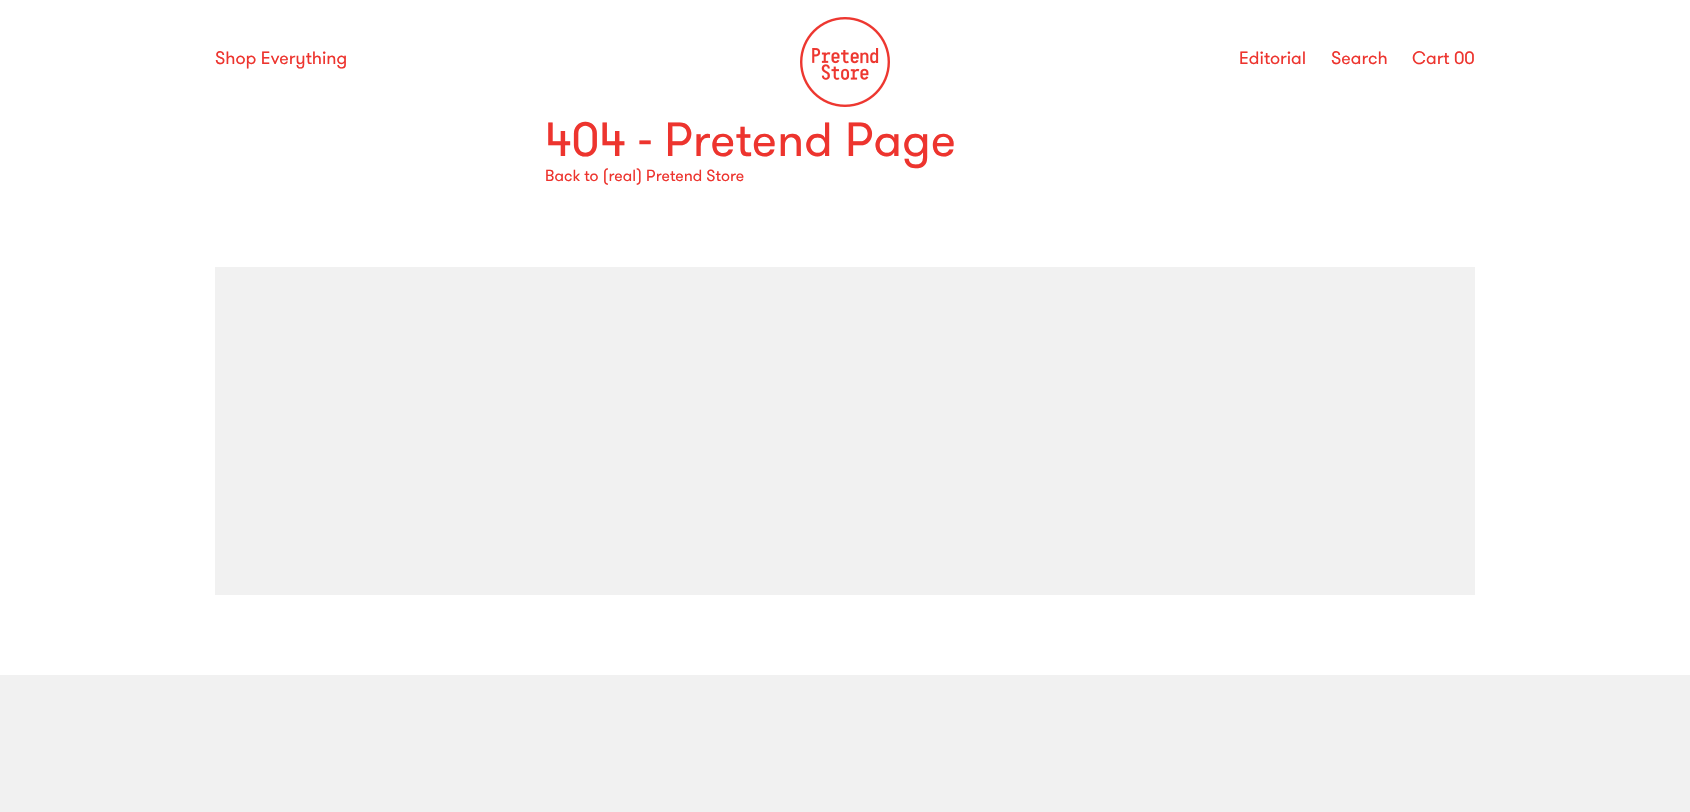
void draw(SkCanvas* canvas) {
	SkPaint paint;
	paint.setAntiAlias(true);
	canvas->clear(0xffffffff);
	SkFont f1(fontMgr->matchFamilyStyle("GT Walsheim", SkFontStyle::Normal()), 18);
	f1.setSubpixel(true);
	paint.setColor(0xffed342e);
	canvas->drawString("Shop Everything", 215, 64, f1, paint);
	canvas->drawImageRect(SkImages::DeferredFromEncodedData(SkData::MakeFromFileName("img1.png")), SkRect::MakeXYWH(800, 17, 90, 90), SkSamplingOptions());
	canvas->drawString("Editorial", 1239, 64, f1, paint);
	canvas->drawString("Search", 1331, 64, f1, paint);
	canvas->drawString("Cart 00", 1412, 64, f1, paint);
	SkFont f2(fontMgr->matchFamilyStyle("GT Walsheim", SkFontStyle::Normal()), 48);
	f2.setSubpixel(true);
	canvas->drawString("404 - Pretend Page", 545, 156, f2, paint);
	SkFont f3(fontMgr->matchFamilyStyle("GT Walsheim", SkFontStyle::Normal()), 16);
	f3.setSubpixel(true);
	canvas->drawString("Back to (real) Pretend Store", 545, 181, f3, paint);
	paint.setColor(0xfff1f1f1);
	canvas->drawRect(SkRect::MakeXYWH(215, 267, 1260, 328), paint);
	canvas->drawRect(SkRect::MakeXYWH(0, 675, 1690, 137), paint);
}
